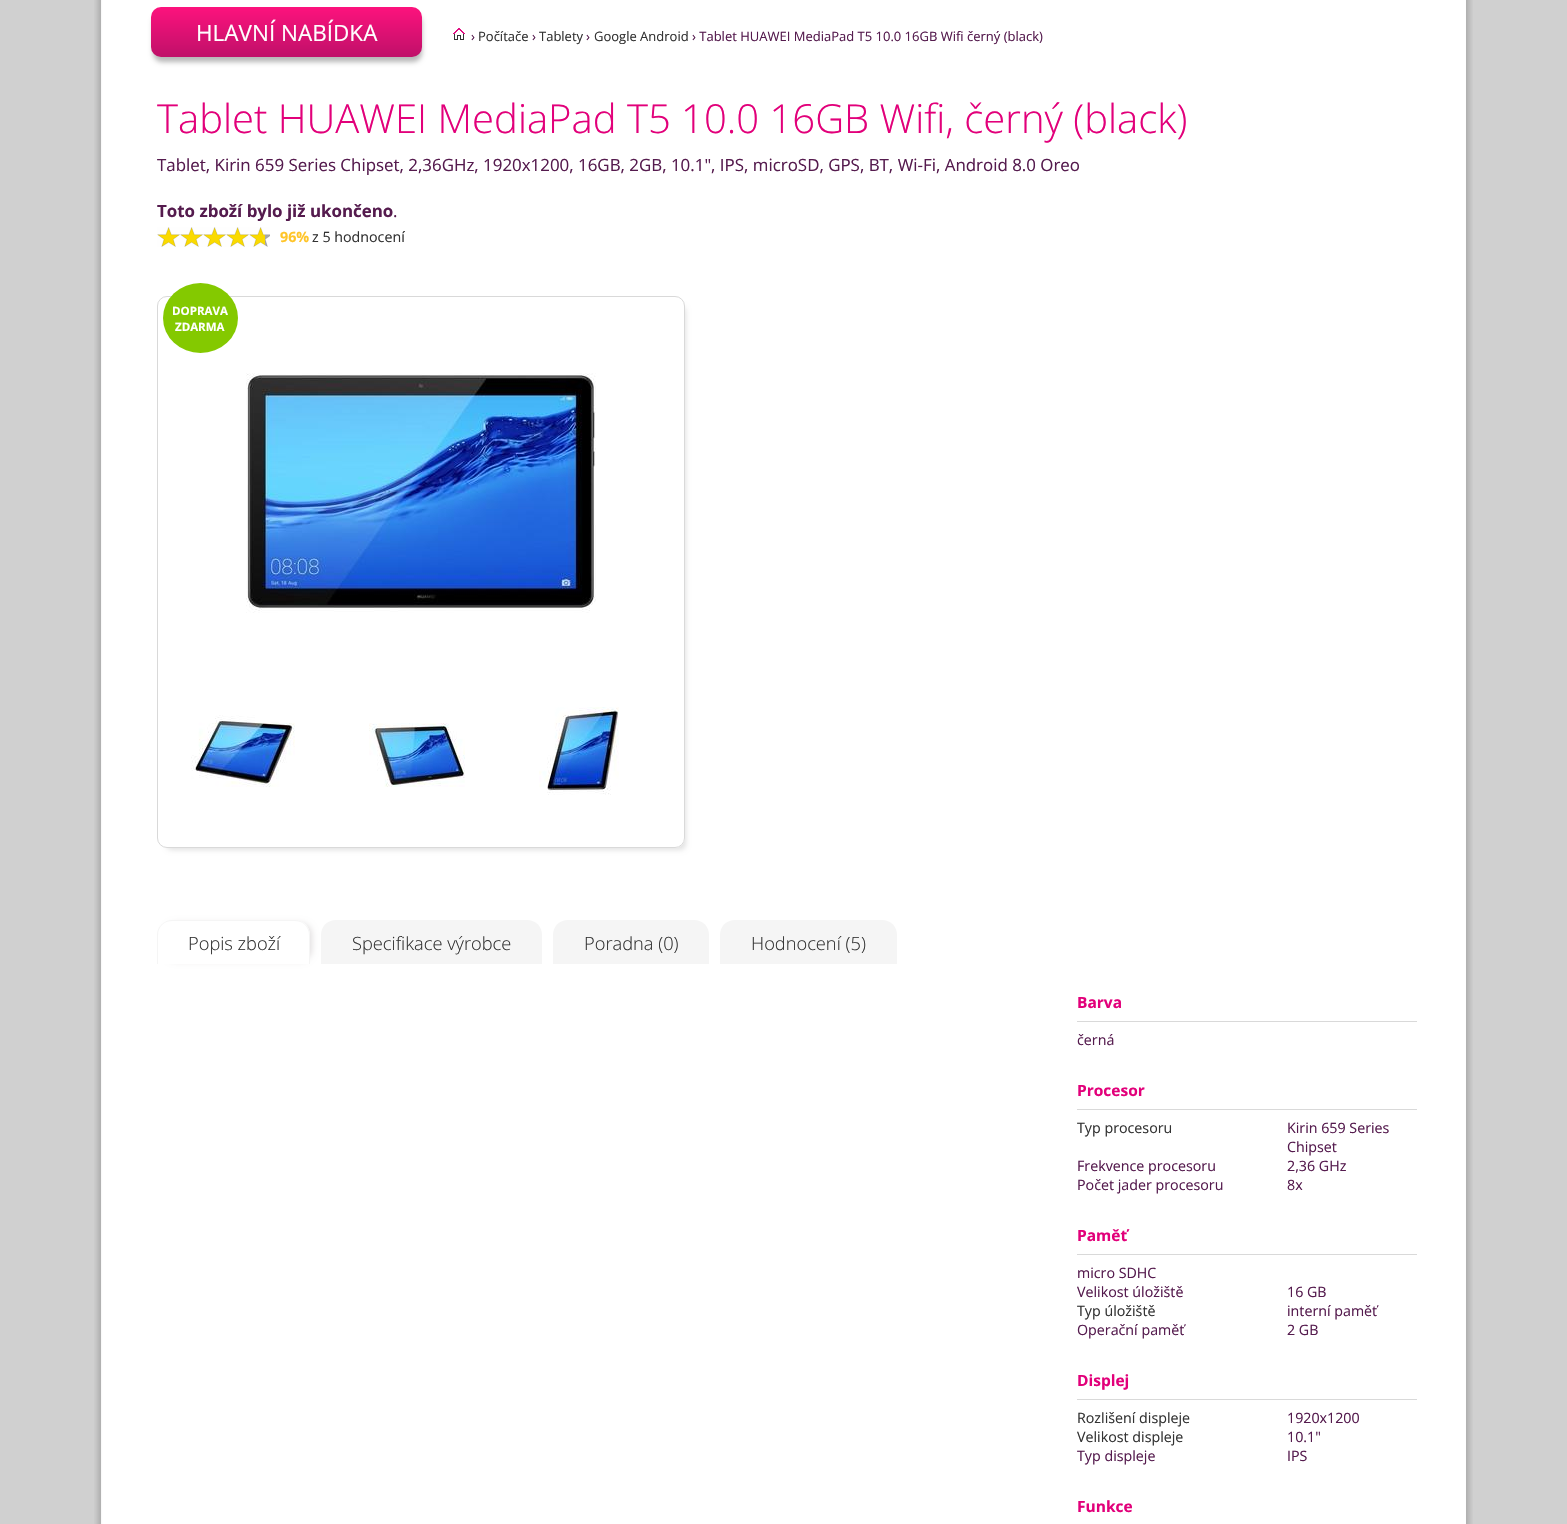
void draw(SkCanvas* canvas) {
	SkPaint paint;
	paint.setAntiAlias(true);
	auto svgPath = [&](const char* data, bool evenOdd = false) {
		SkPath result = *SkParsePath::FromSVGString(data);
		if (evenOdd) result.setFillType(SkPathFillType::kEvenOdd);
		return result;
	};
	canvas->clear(0xffd0d0d0);
	canvas->drawImageRect(SkImages::DeferredFromEncodedData(SkData::MakeFromFileName("img1.png")), SkRect::MakeXYWH(94, 0, 1379, 1524), SkSamplingOptions());
	paint.setColor(0xffb7b7b7);
	paint.setMaskFilter(SkMaskFilter::MakeBlur(kNormal_SkBlurStyle, 2.5));
	canvas->drawRoundRect(SkRect::MakeXYWH(153, 14, 269, 48), 9, 9, paint);
	paint.setMaskFilter(nullptr);
	{
		const SkColor colors[] = {0xfffd127d, 0xffbf1069};
		const float stops[] = {0, 1};
		const SkPoint ends[] = {{287, 7}, {287, 57}};
		paint.setShader(SkGradientShader::MakeLinear(ends, colors, stops, 2, SkTileMode::kClamp));
		paint.setAlpha(255);
	}
	canvas->drawRoundRect(SkRect::MakeXYWH(151, 7, 271, 50), 10, 10, paint);
	SkFont f1(fontMgr->matchFamilyStyle("Open Sans", SkFontStyle::Normal()), 22.5);
	f1.setSubpixel(true);
	paint.setShader(nullptr);
	paint.setColor(0xffffffff);
	canvas->drawString("HLAVNÍ NABÍDKA", 196, 41, f1, paint);
	canvas->drawImageRect(SkImages::DeferredFromEncodedData(SkData::MakeFromFileName("img2.png")), SkRect::MakeXYWH(453, 28, 12, 12), SkSamplingOptions());
	SkFont f2(fontMgr->matchFamilyStyle("Open Sans", SkFontStyle::Normal()), 13);
	f2.setSubpixel(true);
	paint.setColor(0xff551b4e);
	canvas->drawString("›", 471, 41, f2, paint);
	paint.setColor(0xff333333);
	canvas->drawString("Počítače", 478, 41, f2, paint);
	paint.setColor(0xff551b4e);
	canvas->drawString("›", 532, 41, f2, paint);
	paint.setColor(0xff333333);
	canvas->drawString("Tablety", 539, 41, f2, paint);
	paint.setColor(0xff551b4e);
	canvas->drawString("›", 586, 41, f2, paint);
	paint.setColor(0xff333333);
	canvas->drawString("Google Android", 594, 41, f2, paint);
	paint.setColor(0xff551b4e);
	canvas->drawString("› Tablet HUAWEI MediaPad T5 10.0 16GB Wifi černý (black)", 692, 41, f2, paint);
	SkFont f3(fontMgr->matchFamilyStyle("Open Sans", SkFontStyle(300, SkFontStyle::kNormal_Width, SkFontStyle::kUpright_Slant)), 40);
	f3.setSubpixel(true);
	paint.setColor(0xffe2007a);
	canvas->drawString("Tablet HUAWEI MediaPad T5 10.0 16GB Wifi, černý (black)", 157, 133, f3, paint);
	SkFont f4(fontMgr->matchFamilyStyle("Open Sans", SkFontStyle::Normal()), 16.9);
	f4.setSubpixel(true);
	paint.setColor(0xff551b4e);
	canvas->drawString("Tablet, Kirin 659 Series Chipset, 2,36GHz, 1920x1200, 16GB, 2GB, 10.1\", IPS, microSD, GPS, BT, Wi-Fi, Android 8.0 Oreo", 157, 171, f4, paint);
	SkFont f5(fontMgr->matchFamilyStyle("Open Sans", SkFontStyle::Bold()), 16.9);
	f5.setSubpixel(true);
	canvas->drawString("Toto zboží bylo již ukončeno", 157, 217, f5, paint);
	canvas->drawString(".", 393, 217, f4, paint);
	paint.setColor(0xffa9a9a9);
	canvas->drawRect(SkRect::MakeXYWH(265, 234, 5, 13), paint);
	paint.setColor(0xfffada00);
	canvas->drawRect(SkRect::MakeXYWH(157, 227, 108, 20), paint);
	canvas->drawImageRect(SkImages::DeferredFromEncodedData(SkData::MakeFromFileName("img3.png")), SkRect::MakeXYWH(157, 227, 113, 20), SkSamplingOptions());
	SkFont f6(fontMgr->matchFamilyStyle("Open Sans", SkFontStyle::Bold()), 14.25);
	f6.setSubpixel(true);
	paint.setColor(0xffffc529);
	canvas->drawString("96%", 280, 242, f6, paint);
	SkFont f7(fontMgr->matchFamilyStyle("Open Sans", SkFontStyle::Normal()), 14.25);
	f7.setSubpixel(true);
	paint.setColor(0xff333333);
	canvas->drawString("z 5 hodnocení", 312, 242, f7, paint);
	canvas->save();
	canvas->clipPath(svgPath("M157 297H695V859H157ZM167 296H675C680.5 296 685 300.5 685 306V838C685 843.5 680.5 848 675 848H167C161.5 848 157 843.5 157 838V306C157 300.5 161.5 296 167 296Z", true), true);
	paint.setColor(0xffe2e2e2);
	paint.setMaskFilter(SkMaskFilter::MakeBlur(kNormal_SkBlurStyle, 2.5));
	canvas->drawRoundRect(SkRect::MakeXYWH(166, 306, 520, 544), 6, 6, paint);
	paint.setMaskFilter(nullptr);
	canvas->restore();
	paint.setStroke(true);
	paint.setStrokeWidth(1);
	paint.setColor(0xffd9d9d9);
	canvas->drawRoundRect(SkRect::MakeXYWH(157.5, 296.5, 527, 551), 9.5, 9.5, paint);
	paint.setStroke(false);
	paint.setColor(0xff84c900);
	canvas->drawOval(SkRect::MakeXYWH(163, 283, 75, 70), paint);
	SkFont f8(fontMgr->matchFamilyStyle("Open Sans", SkFontStyle::Bold()), 11.5);
	f8.setSubpixel(true);
	paint.setColor(0xffffffff);
	canvas->drawString("DOPRAVA", 172, 315, f8, paint);
	canvas->drawString("ZDARMA", 175, 331, f8, paint);
	canvas->drawImageRect(SkImages::DeferredFromEncodedData(SkData::MakeFromFileName("img4.png")), SkRect::MakeXYWH(246, 373, 350, 240), SkSamplingOptions());
	canvas->drawImageRect(SkImages::DeferredFromEncodedData(SkData::MakeFromFileName("img5.png")), SkRect::MakeXYWH(191, 715, 104, 72), SkSamplingOptions());
	canvas->drawImageRect(SkImages::DeferredFromEncodedData(SkData::MakeFromFileName("img6.png")), SkRect::MakeXYWH(369, 723, 96, 64), SkSamplingOptions());
	canvas->drawImageRect(SkImages::DeferredFromEncodedData(SkData::MakeFromFileName("img7.png")), SkRect::MakeXYWH(539, 707, 80, 88), SkSamplingOptions());
	paint.setColor(0xffe2dfe0);
	paint.setMaskFilter(SkMaskFilter::MakeBlur(kNormal_SkBlurStyle, 3));
	canvas->drawRoundRect(SkRect::MakeXYWH(165, 923, 147, 38), 12, 12, paint);
	paint.setMaskFilter(nullptr);
	paint.setColor(0xffffffff);
	canvas->drawPath(svgPath("M172 920H295C303.5 920 310 926.5 310 935V964H157V935C157 926.5 163.5 920 172 920Z"), paint);
	paint.setColor(0xfff5f5f5);
	canvas->drawPath(svgPath("M172 920H295C303 920 310 927 310 935V964H157V935C157 927 164 920 172 920ZM172 921H295C303 921 309 927 309 935V964H158V935C158 927 164 921 172 921Z", true), paint);
	SkFont f9(fontMgr->matchFamilyStyle("Open Sans", SkFontStyle(300, SkFontStyle::kNormal_Width, SkFontStyle::kUpright_Slant)), 18.25);
	f9.setSubpixel(true);
	paint.setColor(0xff333333);
	canvas->drawString("Popis zboží", 188, 950, f9, paint);
	paint.setColor(0xfff5f5f5);
	canvas->drawPath(svgPath("M336 920H527C535.5 920 542 926.5 542 935V964H321V935C321 926.5 327.5 920 336 920Z"), paint);
	paint.setColor(0xff333333);
	canvas->drawString("Specifikace výrobce", 352, 950, f9, paint);
	paint.setColor(0xfff5f5f5);
	canvas->drawPath(svgPath("M568 920H694C702.5 920 709 926.5 709 935V964H553V935C553 926.5 559.5 920 568 920Z"), paint);
	paint.setColor(0xff333333);
	canvas->drawString("Poradna (0)", 584, 950, f9, paint);
	paint.setColor(0xfff5f5f5);
	canvas->drawPath(svgPath("M735 920H882C890.5 920 897 926.5 897 935V964H720V935C720 926.5 726.5 920 735 920Z"), paint);
	paint.setColor(0xff333333);
	canvas->drawString("Hodnocení (5)", 751, 950, f9, paint);
	paint.setColor(0xffd9d9d9);
	canvas->drawRect(SkRect::MakeXYWH(1077, 1021, 340, 1), paint);
	SkFont f10(fontMgr->matchFamilyStyle("Open Sans", SkFontStyle::Bold()), 15.5);
	f10.setSubpixel(true);
	paint.setColor(0xffe2007a);
	canvas->drawString("Barva", 1077, 1008, f10, paint);
	paint.setColor(0xff551b4e);
	canvas->drawString("černá", 1077, 1045, f7, paint);
	paint.setColor(0xffd9d9d9);
	canvas->drawRect(SkRect::MakeXYWH(1077, 1109, 340, 1), paint);
	paint.setColor(0xffe2007a);
	canvas->drawString("Procesor", 1077, 1096, f10, paint);
	paint.setColor(0xff333333);
	canvas->drawString("Typ procesoru", 1077, 1133, f7, paint);
	paint.setColor(0xff551b4e);
	canvas->drawString("Kirin 659 Series", 1287, 1133, f7, paint);
	canvas->drawString("Chipset", 1287, 1152, f7, paint);
	canvas->drawString("Frekvence procesoru", 1077, 1171, f7, paint);
	canvas->drawString("2,36 GHz", 1287, 1171, f7, paint);
	canvas->drawString("Počet jader procesoru", 1077, 1190, f7, paint);
	canvas->drawString("8x", 1287, 1190, f7, paint);
	paint.setColor(0xffd9d9d9);
	canvas->drawRect(SkRect::MakeXYWH(1077, 1254, 340, 1), paint);
	paint.setColor(0xffe2007a);
	canvas->drawString("Paměť", 1077, 1241, f10, paint);
	paint.setColor(0xff551b4e);
	canvas->drawString("micro SDHC", 1077, 1278, f7, paint);
	canvas->drawString("Velikost úložiště", 1077, 1297, f7, paint);
	canvas->drawString("16 GB", 1287, 1297, f7, paint);
	paint.setColor(0xff333333);
	canvas->drawString("Typ úložiště", 1077, 1316, f7, paint);
	paint.setColor(0xff551b4e);
	canvas->drawString("interní paměť", 1287, 1316, f7, paint);
	canvas->drawString("Operační paměť", 1077, 1335, f7, paint);
	canvas->drawString("2 GB", 1287, 1335, f7, paint);
	paint.setColor(0xffd9d9d9);
	canvas->drawRect(SkRect::MakeXYWH(1077, 1399, 340, 1), paint);
	paint.setColor(0xffe2007a);
	canvas->drawString("Displej", 1077, 1386, f10, paint);
	paint.setColor(0xff333333);
	canvas->drawString("Rozlišení displeje", 1077, 1423, f7, paint);
	paint.setColor(0xff551b4e);
	canvas->drawString("1920x1200", 1287, 1423, f7, paint);
	paint.setColor(0xff333333);
	canvas->drawString("Velikost displeje", 1077, 1442, f7, paint);
	paint.setColor(0xff551b4e);
	canvas->drawString("10.1\"", 1287, 1442, f7, paint);
	canvas->drawString("Typ displeje", 1077, 1461, f7, paint);
	canvas->drawString("IPS", 1287, 1461, f7, paint);
	paint.setColor(0xffe2007a);
	canvas->drawString("Funkce", 1077, 1512, f10, paint);
}
